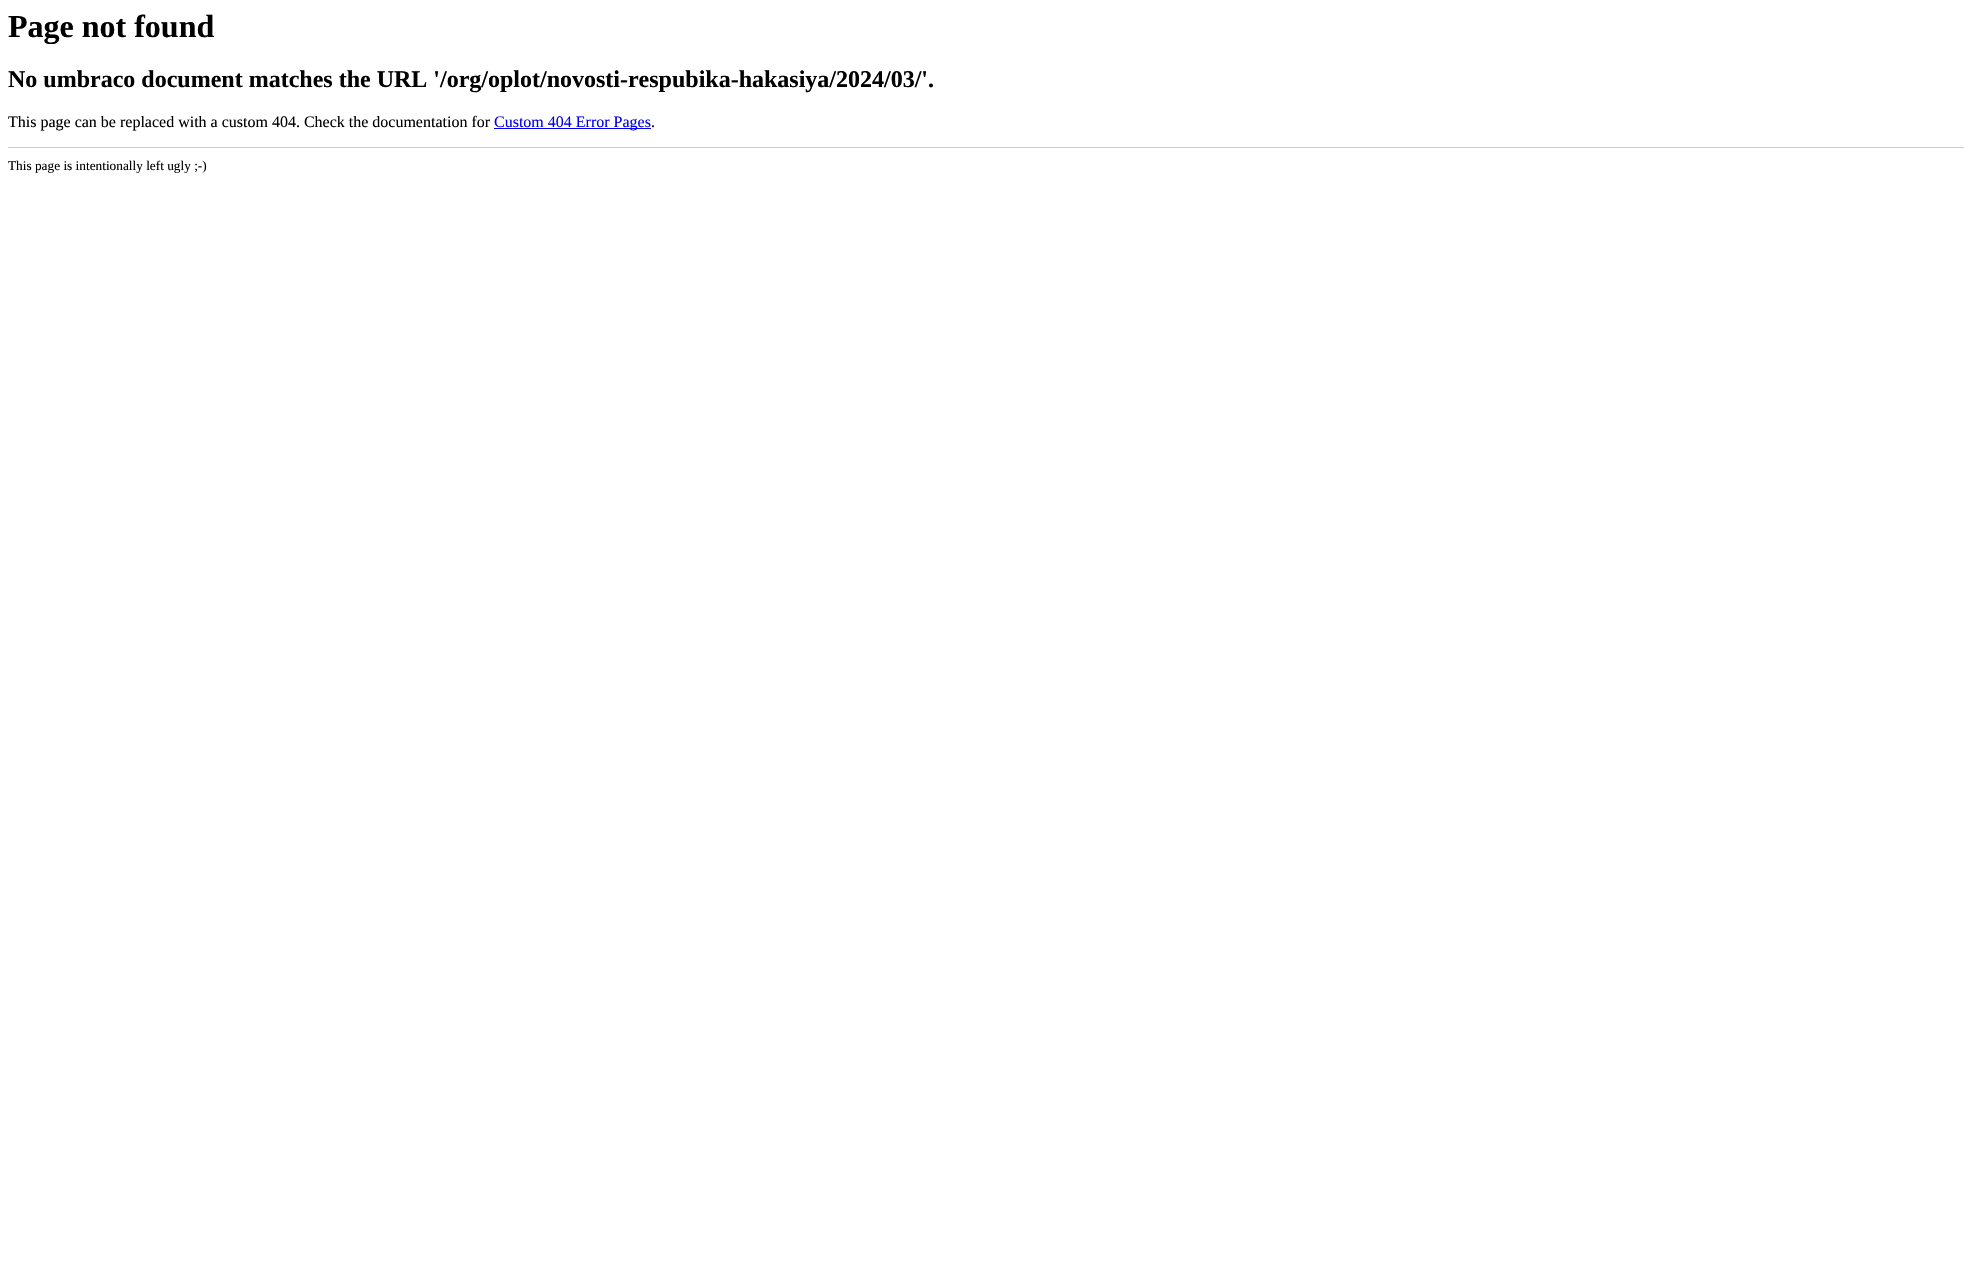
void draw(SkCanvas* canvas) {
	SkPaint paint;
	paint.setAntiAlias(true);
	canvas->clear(0xffffffff);
	SkFont f1(fontMgr->matchFamilyStyle("Liberation Serif", SkFontStyle::Bold()), 32);
	f1.setSubpixel(true);
	paint.setColor(0xff000000);
	canvas->drawString("Page not found", 8, 37, f1, paint);
	SkFont f2(fontMgr->matchFamilyStyle("Liberation Serif", SkFontStyle::Bold()), 24);
	f2.setSubpixel(true);
	canvas->drawString("No umbraco document matches the URL '/org/oplot/novosti-respubika-hakasiya/2024/03/'.", 8, 87, f2, paint);
	SkFont f3(fontMgr->matchFamilyStyle("Liberation Serif", SkFontStyle::Normal()), 16);
	f3.setSubpixel(true);
	canvas->drawString("This page can be replaced with a custom 404. Check the documentation for", 8, 127, f3, paint);
	paint.setColor(0xff0000ee);
	canvas->drawRect(SkRect::MakeXYWH(494, 128, 157, 1), paint);
	canvas->drawString("Custom 404 Error Pages", 494, 127, f3, paint);
	paint.setColor(0xff000000);
	canvas->drawString(".", 651, 127, f3, paint);
	paint.setColor(0xffcccccc);
	canvas->drawRect(SkRect::MakeXYWH(8, 147, 1956, 1), paint);
	SkFont f4(fontMgr->matchFamilyStyle("Liberation Serif", SkFontStyle::Normal()), 13.3);
	f4.setSubpixel(true);
	paint.setColor(0xff000000);
	canvas->drawString("This page is intentionally left ugly ;-)", 8, 170, f4, paint);
}
